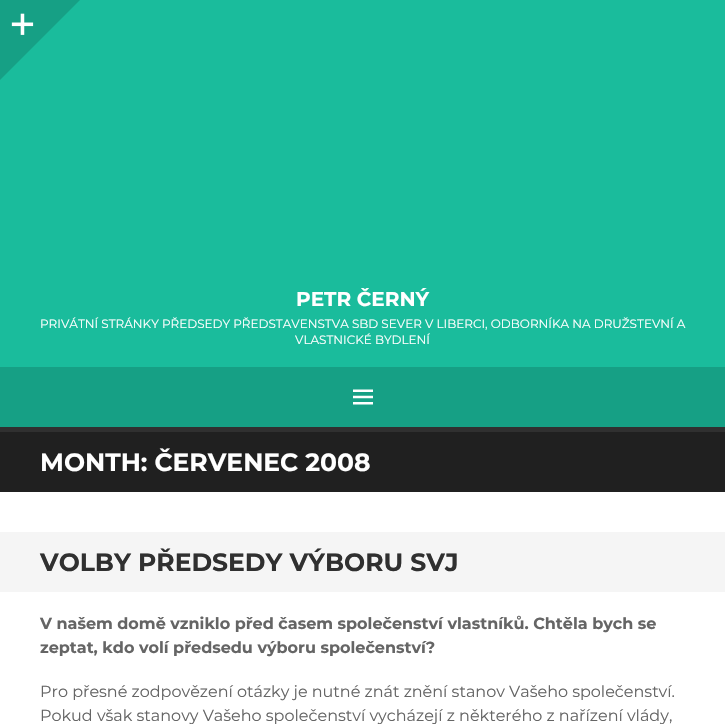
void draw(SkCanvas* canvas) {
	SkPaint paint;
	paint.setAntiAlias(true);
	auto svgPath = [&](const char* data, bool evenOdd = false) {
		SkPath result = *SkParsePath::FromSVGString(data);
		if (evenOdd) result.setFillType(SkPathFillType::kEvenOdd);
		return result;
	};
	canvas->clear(0xffffffff);
	paint.setColor(0xff1abc9c);
	canvas->drawRect(SkRect::MakeXYWH(0, 0, 725, 367), paint);
	paint.setColor(0xff16a085);
	canvas->drawRect(SkRect::MakeXYWH(0, 0, 40, 40), paint);
	canvas->drawImageRect(SkImages::DeferredFromEncodedData(SkData::MakeFromFileName("img1.png")), SkRect::MakeXYWH(11, 13, 23, 22), SkSamplingOptions());
	canvas->drawPath(svgPath("M40 0H80L40 40Z"), paint);
	canvas->drawPath(svgPath("M0 40H40L0 80Z"), paint);
	SkFont f1(fontMgr->matchFamilyStyle("Montserrat", SkFontStyle::Bold()), 20);
	f1.setSubpixel(true);
	paint.setColor(0xffffffff);
	canvas->drawString("PETR ČERNÝ", 296, 306, f1, paint);
	SkFont f2(fontMgr->matchFamilyStyle("Montserrat", SkFontStyle::Normal()), 12);
	f2.setSubpixel(true);
	canvas->drawString("PRIVÁTNÍ STRÁNKY PŘEDSEDY PŘEDSTAVENSTVA SBD SEVER V LIBERCI, ODBORNÍKA NA DRUŽSTEVNÍ A", 40, 328, f2, paint);
	canvas->drawString("VLASTNICKÉ BYDLENÍ", 295, 344, f2, paint);
	paint.setColor(0xff16a085);
	canvas->drawRect(SkRect::MakeXYWH(0, 367, 725, 60), paint);
	paint.setColor(0xff303030);
	canvas->drawRect(SkRect::MakeXYWH(0, 427, 725, 5), paint);
	canvas->drawImageRect(SkImages::DeferredFromEncodedData(SkData::MakeFromFileName("img2.png")), SkRect::MakeXYWH(353, 389, 20, 16), SkSamplingOptions());
	paint.setColor(0xff202020);
	canvas->drawRect(SkRect::MakeXYWH(0, 432, 725, 60), paint);
	SkFont f3(fontMgr->matchFamilyStyle("Montserrat", SkFontStyle::Bold()), 25);
	f3.setSubpixel(true);
	paint.setColor(0xffffffff);
	canvas->drawString("MONTH: ČERVENEC 2008", 40, 471, f3, paint);
	paint.setColor(0xfff5f5f5);
	canvas->drawRect(SkRect::MakeXYWH(0, 532, 725, 60), paint);
	paint.setColor(0xff303030);
	canvas->drawString("VOLBY PŘEDSEDY VÝBORU SVJ", 40, 571, f3, paint);
	SkFont f4(fontMgr->matchFamilyStyle("Montserrat", SkFontStyle::Bold()), 16);
	f4.setSubpixel(true);
	paint.setColor(0xff656565);
	canvas->drawString("V našem domě vzniklo před časem společenství vlastníků. Chtěla bych se", 40, 629, f4, paint);
	canvas->drawString("zeptat, kdo volí předsedu výboru společenství?", 40, 653, f4, paint);
	SkFont f5(fontMgr->matchFamilyStyle("Montserrat", SkFontStyle::Normal()), 16);
	f5.setSubpixel(true);
	canvas->drawString("Pro přesné zodpovězení otázky je nutné znát znění stanov Vašeho společenství.", 40, 697, f5, paint);
	canvas->drawString("Pokud však stanovy Vašeho společenství vycházejí z některého z nařízení vlády,", 40, 721, f5, paint);
}
